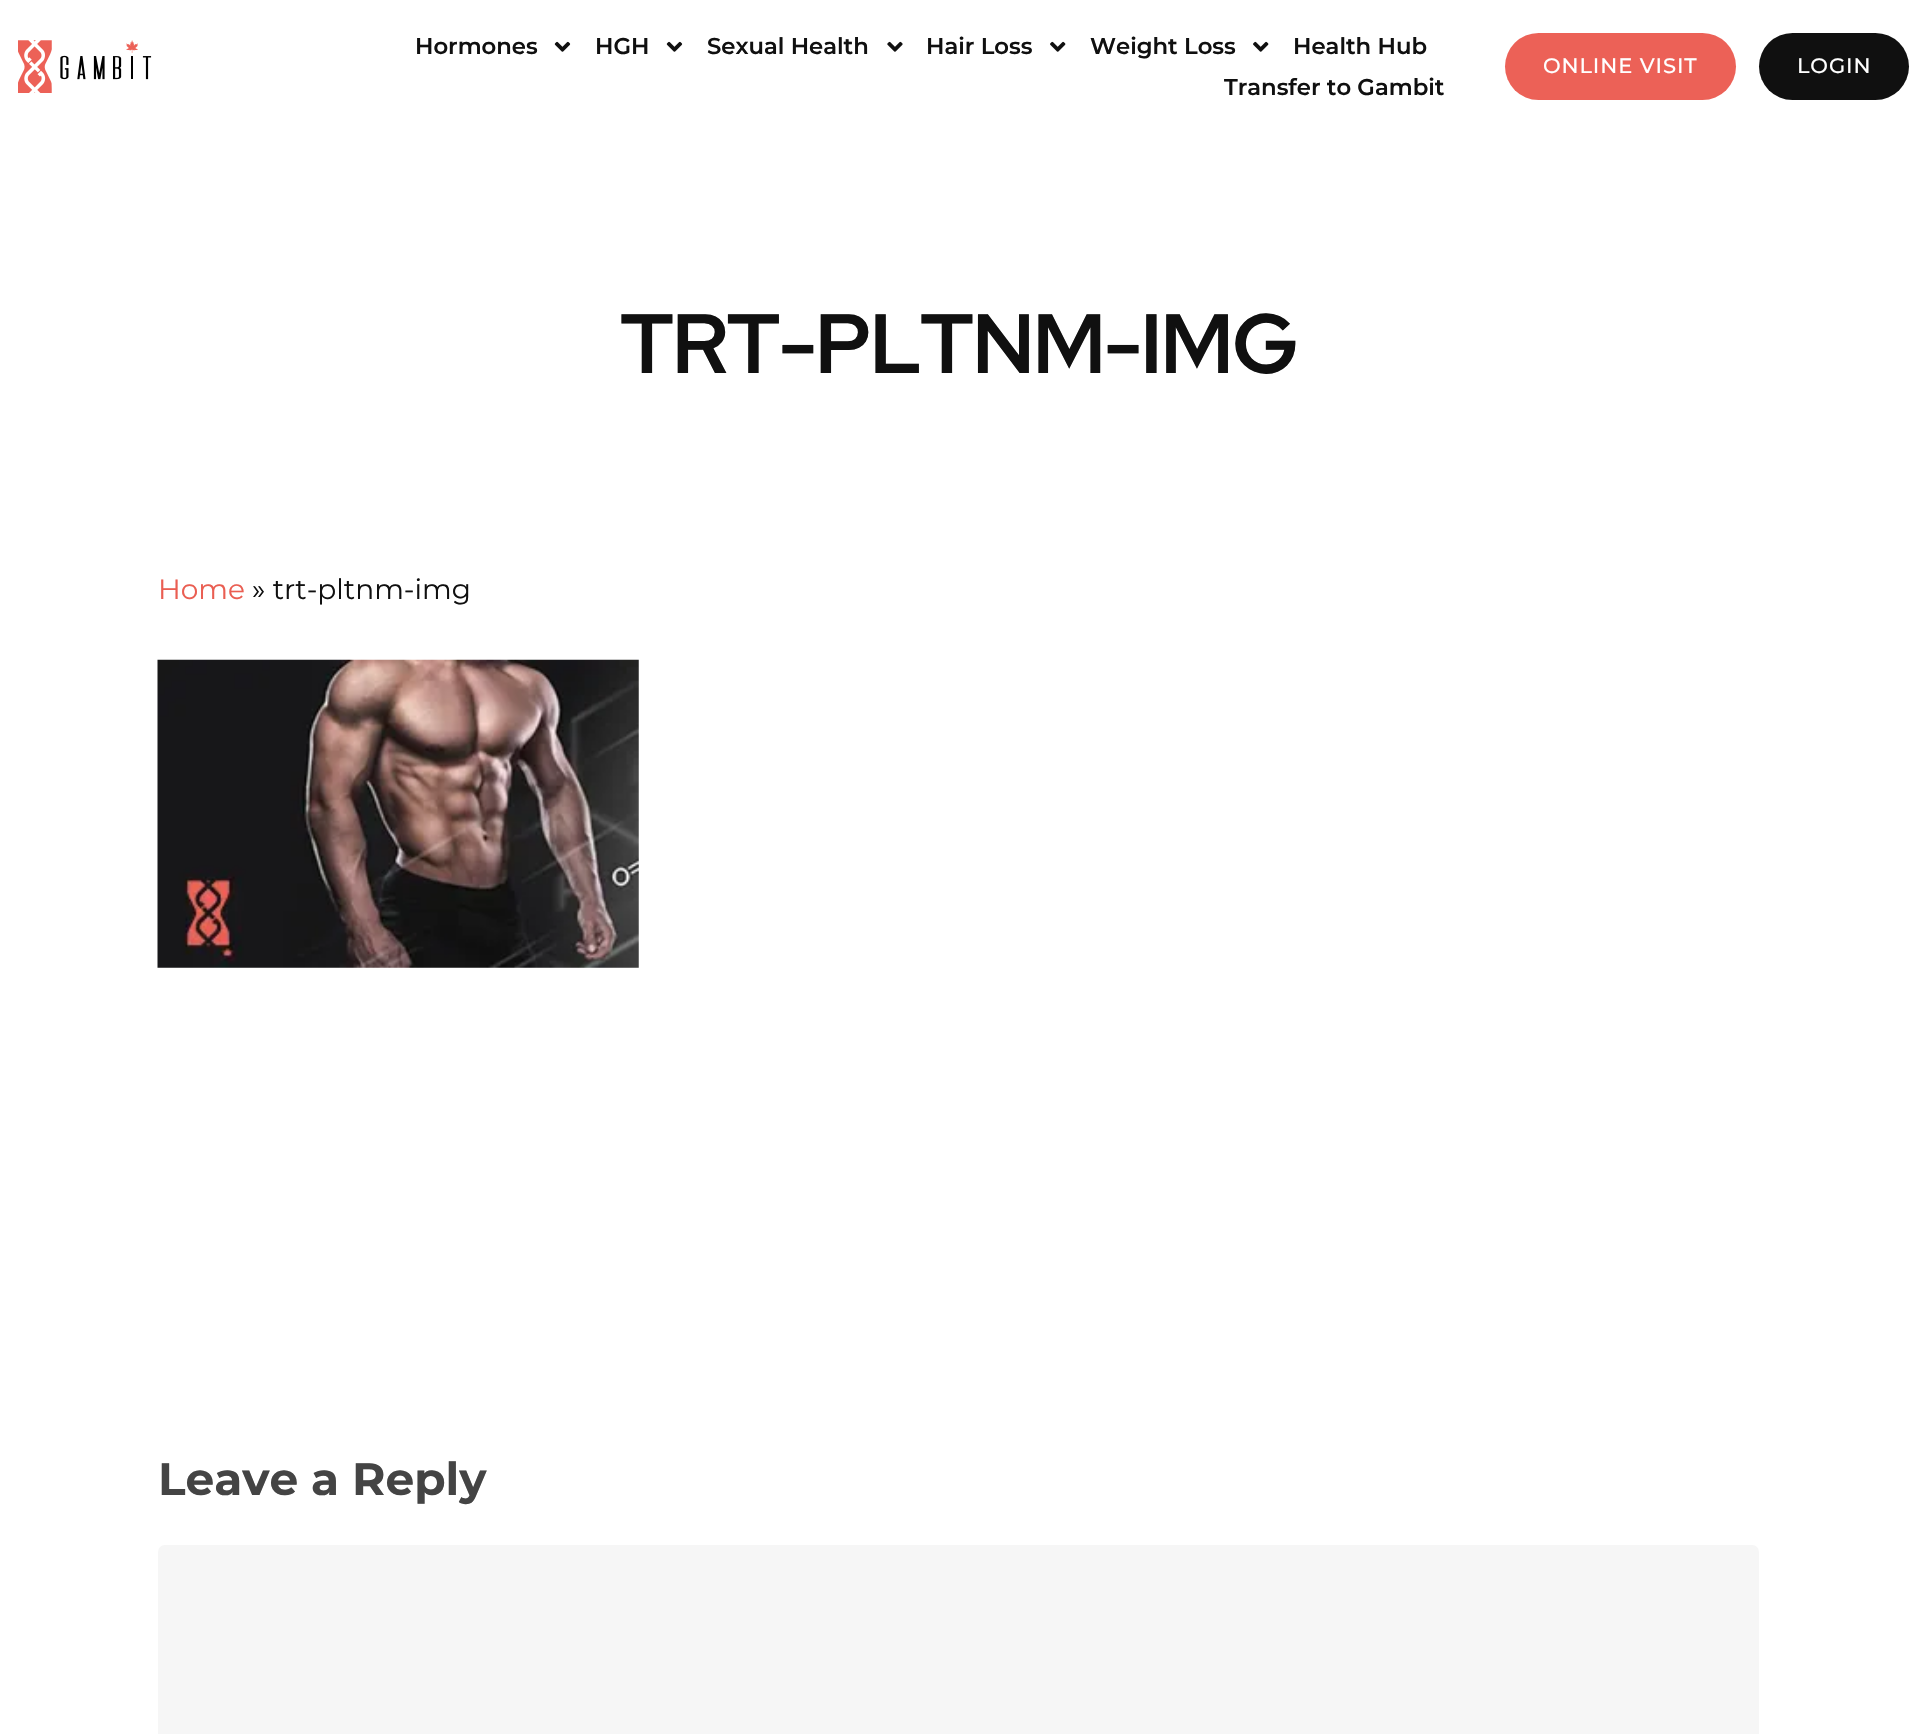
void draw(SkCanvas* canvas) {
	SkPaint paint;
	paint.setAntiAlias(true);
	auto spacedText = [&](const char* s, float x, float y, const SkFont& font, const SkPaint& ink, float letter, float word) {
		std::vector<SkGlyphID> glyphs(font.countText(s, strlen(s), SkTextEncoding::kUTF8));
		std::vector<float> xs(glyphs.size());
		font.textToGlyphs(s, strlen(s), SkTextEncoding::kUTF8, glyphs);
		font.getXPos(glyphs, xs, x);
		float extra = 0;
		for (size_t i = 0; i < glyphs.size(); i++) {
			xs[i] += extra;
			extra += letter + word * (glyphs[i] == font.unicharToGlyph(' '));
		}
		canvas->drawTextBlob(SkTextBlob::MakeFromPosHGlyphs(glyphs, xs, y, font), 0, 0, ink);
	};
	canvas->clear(0xffffffff);
	canvas->drawImageRect(SkImages::DeferredFromEncodedData(SkData::MakeFromFileName("img1.png")), SkRect::MakeXYWH(18, 40, 134, 53), SkSamplingOptions());
	SkFont f1(fontMgr->matchFamilyStyle("Montserrat", SkFontStyle(600, SkFontStyle::kNormal_Width, SkFontStyle::kUpright_Slant)), 22.75);
	f1.setSubpixel(true);
	paint.setColor(0xff101010);
	canvas->drawString("Hormones", 415, 54, f1, paint);
	canvas->drawImageRect(SkImages::DeferredFromEncodedData(SkData::MakeFromFileName("img2.png")), SkRect::MakeXYWH(554, 41, 17, 11), SkSamplingOptions());
	canvas->drawString("HGH", 595, 54, f1, paint);
	canvas->drawImageRect(SkImages::DeferredFromEncodedData(SkData::MakeFromFileName("img2.png")), SkRect::MakeXYWH(666, 41, 17, 11), SkSamplingOptions());
	canvas->drawString("Sexual Health", 707, 54, f1, paint);
	canvas->drawImageRect(SkImages::DeferredFromEncodedData(SkData::MakeFromFileName("img3.png")), SkRect::MakeXYWH(887, 41, 16, 11), SkSamplingOptions());
	canvas->drawString("Hair Loss", 926, 54, f1, paint);
	canvas->drawImageRect(SkImages::DeferredFromEncodedData(SkData::MakeFromFileName("img4.png")), SkRect::MakeXYWH(1050, 41, 16, 11), SkSamplingOptions());
	canvas->drawString("Weight Loss", 1090, 54, f1, paint);
	canvas->drawImageRect(SkImages::DeferredFromEncodedData(SkData::MakeFromFileName("img4.png")), SkRect::MakeXYWH(1253, 41, 16, 11), SkSamplingOptions());
	canvas->drawString("Health Hub", 1293, 54, f1, paint);
	canvas->drawString("Transfer to Gambit", 1224, 95, f1, paint);
	paint.setColor(0xffec6157);
	canvas->drawRoundRect(SkRect::MakeXYWH(1505, 33, 231, 67), 33.5, 33.5, paint);
	SkFont f2(fontMgr->matchFamilyStyle("Montserrat", SkFontStyle(500, SkFontStyle::kNormal_Width, SkFontStyle::kUpright_Slant)), 21);
	f2.setSubpixel(true);
	paint.setColor(0xffffffff);
	spacedText("ONLINE VISIT", 1543, 73, f2, paint, 0.9, 0);
	paint.setColor(0xff101010);
	canvas->drawRoundRect(SkRect::MakeXYWH(1759, 33, 150, 67), 33.5, 33.5, paint);
	paint.setColor(0xffffffff);
	spacedText("LOGIN", 1797, 73, f2, paint, 0.9, 0);
	SkFont f3(fontMgr->matchFamilyStyle("Red Hat Display", SkFontStyle::Bold()), 84);
	f3.setSubpixel(true);
	paint.setColor(0xff101010);
	spacedText("TRT-PLTNM-IMG", 620, 373, f3, paint, -1.75, 0);
	SkFont f4(fontMgr->matchFamilyStyle("Montserrat", SkFontStyle::Normal()), 28);
	f4.setSubpixel(true);
	paint.setColor(0xffea5e52);
	canvas->drawString("Home", 158, 599, f4, paint);
	paint.setColor(0xff101010);
	canvas->drawString("» trt-pltnm-img", 252, 599, f4, paint);
	canvas->drawImageRect(SkImages::DeferredFromEncodedData(SkData::MakeFromFileName("img5.png")), SkRect::MakeXYWH(157, 659, 482, 309), SkSamplingOptions());
	SkFont f5(fontMgr->matchFamilyStyle("Montserrat", SkFontStyle::Bold()), 45.5);
	f5.setSubpixel(true);
	paint.setColor(0xff444444);
	canvas->drawString("Leave a Reply", 158, 1495, f5, paint);
	paint.setColor(0xfff6f6f6);
	canvas->drawRoundRect(SkRect::MakeXYWH(158, 1545, 1601, 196), 7, 7, paint);
}
